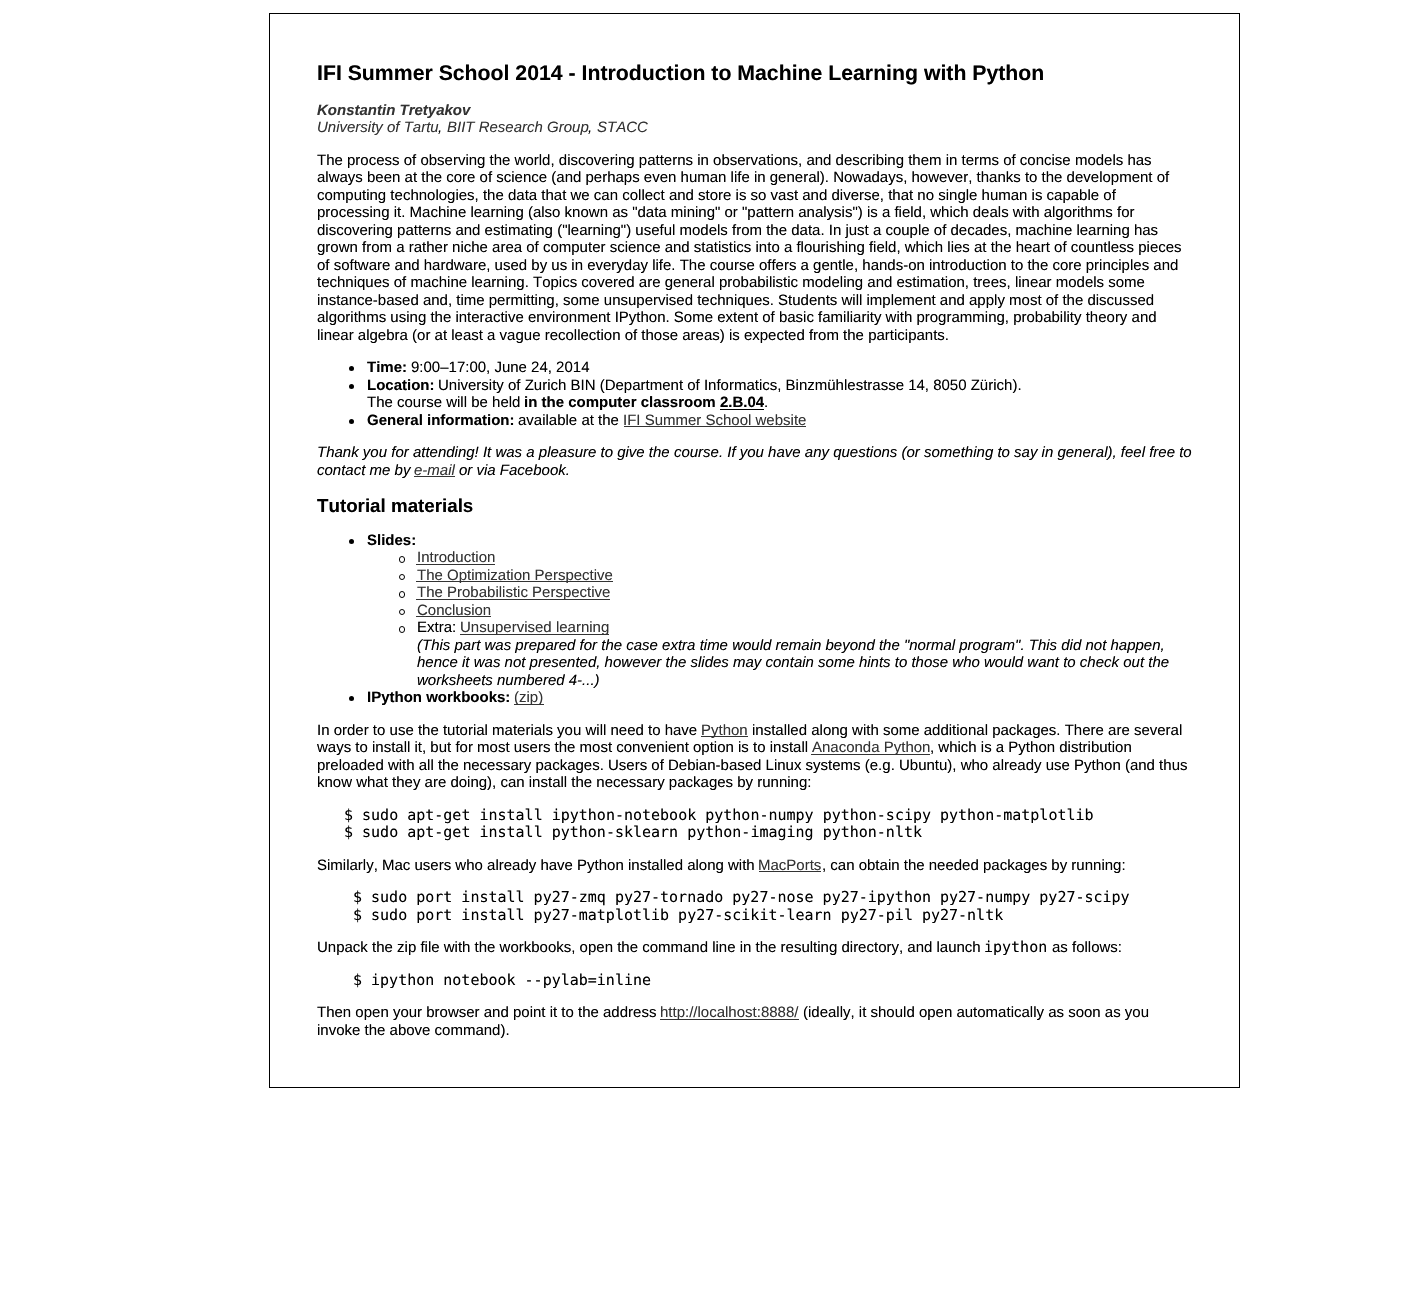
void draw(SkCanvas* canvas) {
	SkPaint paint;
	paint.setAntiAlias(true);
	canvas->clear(0xffffffff);
	paint.setStroke(true);
	paint.setStrokeWidth(1);
	paint.setColor(0xff000000);
	canvas->drawRect(SkRect::MakeXYWH(269.5, 13.5, 970, 1074), paint);
	SkFont f1(fontMgr->matchFamilyStyle("Liberation Sans", SkFontStyle::Bold()), 21.25);
	f1.setSubpixel(true);
	paint.setStroke(false);
	canvas->drawString("IFI Summer School 2014 - Introduction to Machine Learning with Python", 317, 80, f1, paint);
	SkFont f2(fontMgr->matchFamilyStyle("Liberation Sans", SkFontStyle::BoldItalic()), 15);
	f2.setSubpixel(true);
	paint.setColor(0xff333333);
	canvas->drawString("Konstantin Tretyakov", 317, 115, f2, paint);
	SkFont f3(fontMgr->matchFamilyStyle("Liberation Sans", SkFontStyle::Italic()), 15);
	f3.setSubpixel(true);
	canvas->drawString("University of Tartu", 317, 132, f3, paint);
	paint.setColor(0xff000000);
	canvas->drawString(",", 438, 132, f3, paint);
	paint.setColor(0xff333333);
	canvas->drawString("BIIT Research Group", 447, 132, f3, paint);
	paint.setColor(0xff000000);
	canvas->drawString(",", 588, 132, f3, paint);
	paint.setColor(0xff333333);
	canvas->drawString("STACC", 597, 132, f3, paint);
	SkFont f4(fontMgr->matchFamilyStyle("Liberation Sans", SkFontStyle::Normal()), 15);
	f4.setSubpixel(true);
	paint.setColor(0xff000000);
	canvas->drawString("The process of observing the world, discovering patterns in observations, and describing them in terms of concise models has", 317, 165, f4, paint);
	canvas->drawString("always been at the core of science (and perhaps even human life in general). Nowadays, however, thanks to the development of", 317, 182, f4, paint);
	canvas->drawString("computing technologies, the data that we can collect and store is so vast and diverse, that no single human is capable of", 317, 200, f4, paint);
	canvas->drawString("processing it. Machine learning (also known as \"data mining\" or \"pattern analysis\") is a field, which deals with algorithms for", 317, 217, f4, paint);
	canvas->drawString("discovering patterns and estimating (\"learning\") useful models from the data. In just a couple of decades, machine learning has", 317, 235, f4, paint);
	canvas->drawString("grown from a rather niche area of computer science and statistics into a flourishing field, which lies at the heart of countless pieces", 317, 252, f4, paint);
	canvas->drawString("of software and hardware, used by us in everyday life. The course offers a gentle, hands-on introduction to the core principles and", 317, 270, f4, paint);
	canvas->drawString("techniques of machine learning. Topics covered are general probabilistic modeling and estimation, trees, linear models some", 317, 287, f4, paint);
	canvas->drawString("instance-based and, time permitting, some unsupervised techniques. Students will implement and apply most of the discussed", 317, 305, f4, paint);
	canvas->drawString("algorithms using the interactive environment IPython. Some extent of basic familiarity with programming, probability theory and", 317, 322, f4, paint);
	canvas->drawString("linear algebra (or at least a vague recollection of those areas) is expected from the participants.", 317, 340, f4, paint);
	canvas->drawCircle(351.5, 368.5, 2.5, paint);
	SkFont f5(fontMgr->matchFamilyStyle("Liberation Sans", SkFontStyle::Bold()), 15);
	f5.setSubpixel(true);
	canvas->drawString("Time:", 367, 372, f5, paint);
	canvas->drawString("9:00–17:00, June 24, 2014", 411, 372, f4, paint);
	canvas->drawCircle(351.5, 386.5, 2.5, paint);
	canvas->drawString("Location:", 367, 390, f5, paint);
	canvas->drawString("University of Zurich BIN (Department of Informatics, Binzmühlestrasse 14, 8050 Zürich).", 438, 390, f4, paint);
	canvas->drawString("The course will be held", 367, 407, f4, paint);
	canvas->drawString("in the computer classroom 2.B.04", 524, 407, f5, paint);
	canvas->drawRect(SkRect::MakeXYWH(720, 409, 44, 1), paint);
	canvas->drawString(".", 764, 407, f4, paint);
	canvas->drawCircle(351.5, 421.5, 2.5, paint);
	canvas->drawString("General information:", 367, 425, f5, paint);
	canvas->drawString("available at the", 518, 425, f4, paint);
	paint.setColor(0xff333333);
	canvas->drawString("IFI Summer School website", 623, 425, f4, paint);
	canvas->drawRect(SkRect::MakeXYWH(624, 426, 182, 1), paint);
	paint.setColor(0xff000000);
	canvas->drawString("Thank you for attending! It was a pleasure to give the course. If you have any questions (or something to say in general), feel free to", 317, 457, f3, paint);
	canvas->drawString("contact me by", 317, 475, f3, paint);
	paint.setColor(0xff333333);
	canvas->drawRect(SkRect::MakeXYWH(414, 476, 41, 1), paint);
	canvas->drawString("e-mail", 414, 475, f3, paint);
	paint.setColor(0xff000000);
	canvas->drawString("or via Facebook.", 459, 475, f3, paint);
	SkFont f6(fontMgr->matchFamilyStyle("Liberation Sans", SkFontStyle::Bold()), 18.75);
	f6.setSubpixel(true);
	canvas->drawString("Tutorial materials", 317, 512, f6, paint);
	canvas->drawCircle(351.5, 541.5, 2.5, paint);
	canvas->drawString("Slides:", 367, 545, f5, paint);
	paint.setStroke(true);
	canvas->drawRoundRect(SkRect::MakeXYWH(399.5, 556.5, 5, 6), 2.5, 2.5, paint);
	paint.setStroke(false);
	paint.setColor(0xff333333);
	canvas->drawString("Introduction", 417, 562, f4, paint);
	canvas->drawRect(SkRect::MakeXYWH(416, 564, 79, 1), paint);
	paint.setStroke(true);
	paint.setColor(0xff000000);
	canvas->drawCircle(402, 577, 2.5, paint);
	paint.setStroke(false);
	paint.setColor(0xff333333);
	canvas->drawRect(SkRect::MakeXYWH(416, 581, 197, 1), paint);
	canvas->drawString("The Optimization Perspective", 417, 580, f4, paint);
	paint.setStroke(true);
	paint.setColor(0xff000000);
	canvas->drawRoundRect(SkRect::MakeXYWH(399.5, 591.5, 5, 6), 2.5, 2.5, paint);
	paint.setStroke(false);
	paint.setColor(0xff333333);
	canvas->drawRect(SkRect::MakeXYWH(416, 599, 194, 1), paint);
	canvas->drawString("The Probabilistic Perspective", 417, 597, f4, paint);
	paint.setStroke(true);
	paint.setColor(0xff000000);
	canvas->drawCircle(402, 612, 2.5, paint);
	paint.setStroke(false);
	paint.setColor(0xff333333);
	canvas->drawString("Conclusion", 417, 615, f4, paint);
	canvas->drawRect(SkRect::MakeXYWH(416, 616, 75, 1), paint);
	paint.setStroke(true);
	paint.setColor(0xff000000);
	canvas->drawRoundRect(SkRect::MakeXYWH(399.5, 626.5, 5, 6), 2.5, 2.5, paint);
	paint.setStroke(false);
	canvas->drawString("Extra:", 417, 632, f4, paint);
	paint.setColor(0xff333333);
	canvas->drawRect(SkRect::MakeXYWH(460, 634, 149, 1), paint);
	canvas->drawString("Unsupervised learning", 460, 632, f4, paint);
	paint.setColor(0xff000000);
	canvas->drawString("(This part was prepared for the case extra time would remain beyond the \"normal program\". This did not happen,", 417, 650, f3, paint);
	canvas->drawString("hence it was not presented, however the slides may contain some hints to those who would want to check out the", 417, 667, f3, paint);
	canvas->drawString("worksheets numbered 4-...)", 417, 685, f3, paint);
	canvas->drawCircle(351.5, 698.5, 2.5, paint);
	canvas->drawString("IPython workbooks:", 367, 702, f5, paint);
	paint.setColor(0xff333333);
	canvas->drawRect(SkRect::MakeXYWH(514, 704, 30, 1), paint);
	canvas->drawString("(zip)", 514, 702, f4, paint);
	paint.setColor(0xff000000);
	canvas->drawString("In order to use the tutorial materials you will need to have", 317, 735, f4, paint);
	paint.setColor(0xff333333);
	canvas->drawRect(SkRect::MakeXYWH(701, 736, 47, 1), paint);
	canvas->drawString("Python", 701, 735, f4, paint);
	paint.setColor(0xff000000);
	canvas->drawString("installed along with some additional packages. There are several", 752, 735, f4, paint);
	canvas->drawString("ways to install it, but for most users the most convenient option is to install", 317, 752, f4, paint);
	paint.setColor(0xff333333);
	canvas->drawRect(SkRect::MakeXYWH(811, 754, 119, 1), paint);
	canvas->drawString("Anaconda Python", 812, 752, f4, paint);
	paint.setColor(0xff000000);
	canvas->drawString(", which is a Python distribution", 930, 752, f4, paint);
	canvas->drawString("preloaded with all the necessary packages. Users of Debian-based Linux systems (e.g. Ubuntu), who already use Python (and thus", 317, 770, f4, paint);
	canvas->drawString("know what they are doing), can install the necessary packages by running:", 317, 787, f4, paint);
	SkFont f7(fontMgr->matchFamilyStyle("DejaVu Sans Mono", SkFontStyle::Normal()), 15);
	f7.setSubpixel(true);
	canvas->drawString("$ sudo apt-get install ipython-notebook python-numpy python-scipy python-matplotlib", 344, 820, f7, paint);
	canvas->drawString("$ sudo apt-get install python-sklearn python-imaging python-nltk", 344, 837, f7, paint);
	canvas->drawString("Similarly, Mac users who already have Python installed along with", 317, 870, f4, paint);
	paint.setColor(0xff333333);
	canvas->drawString("MacPorts", 758, 870, f4, paint);
	canvas->drawRect(SkRect::MakeXYWH(759, 871, 62, 1), paint);
	paint.setColor(0xff000000);
	canvas->drawString(", can obtain the needed packages by running:", 822, 870, f4, paint);
	canvas->drawString("$ sudo port install py27-zmq py27-tornado py27-nose py27-ipython py27-numpy py27-scipy", 353, 902, f7, paint);
	canvas->drawString("$ sudo port install py27-matplotlib py27-scikit-learn py27-pil py27-nltk", 353, 920, f7, paint);
	canvas->drawString("Unpack the zip file with the workbooks, open the command line in the resulting directory, and launch", 317, 952, f4, paint);
	canvas->drawString("ipython", 984, 952, f7, paint);
	canvas->drawString("as follows:", 1052, 952, f4, paint);
	canvas->drawString("$ ipython notebook --pylab=inline", 353, 985, f7, paint);
	canvas->drawString("Then open your browser and point it to the address", 317, 1017, f4, paint);
	paint.setColor(0xff333333);
	canvas->drawRect(SkRect::MakeXYWH(660, 1019, 139, 1), paint);
	canvas->drawString("http://localhost:8888/", 660, 1017, f4, paint);
	paint.setColor(0xff000000);
	canvas->drawString("(ideally, it should open automatically as soon as you", 803, 1017, f4, paint);
	canvas->drawString("invoke the above command).", 317, 1035, f4, paint);
}
